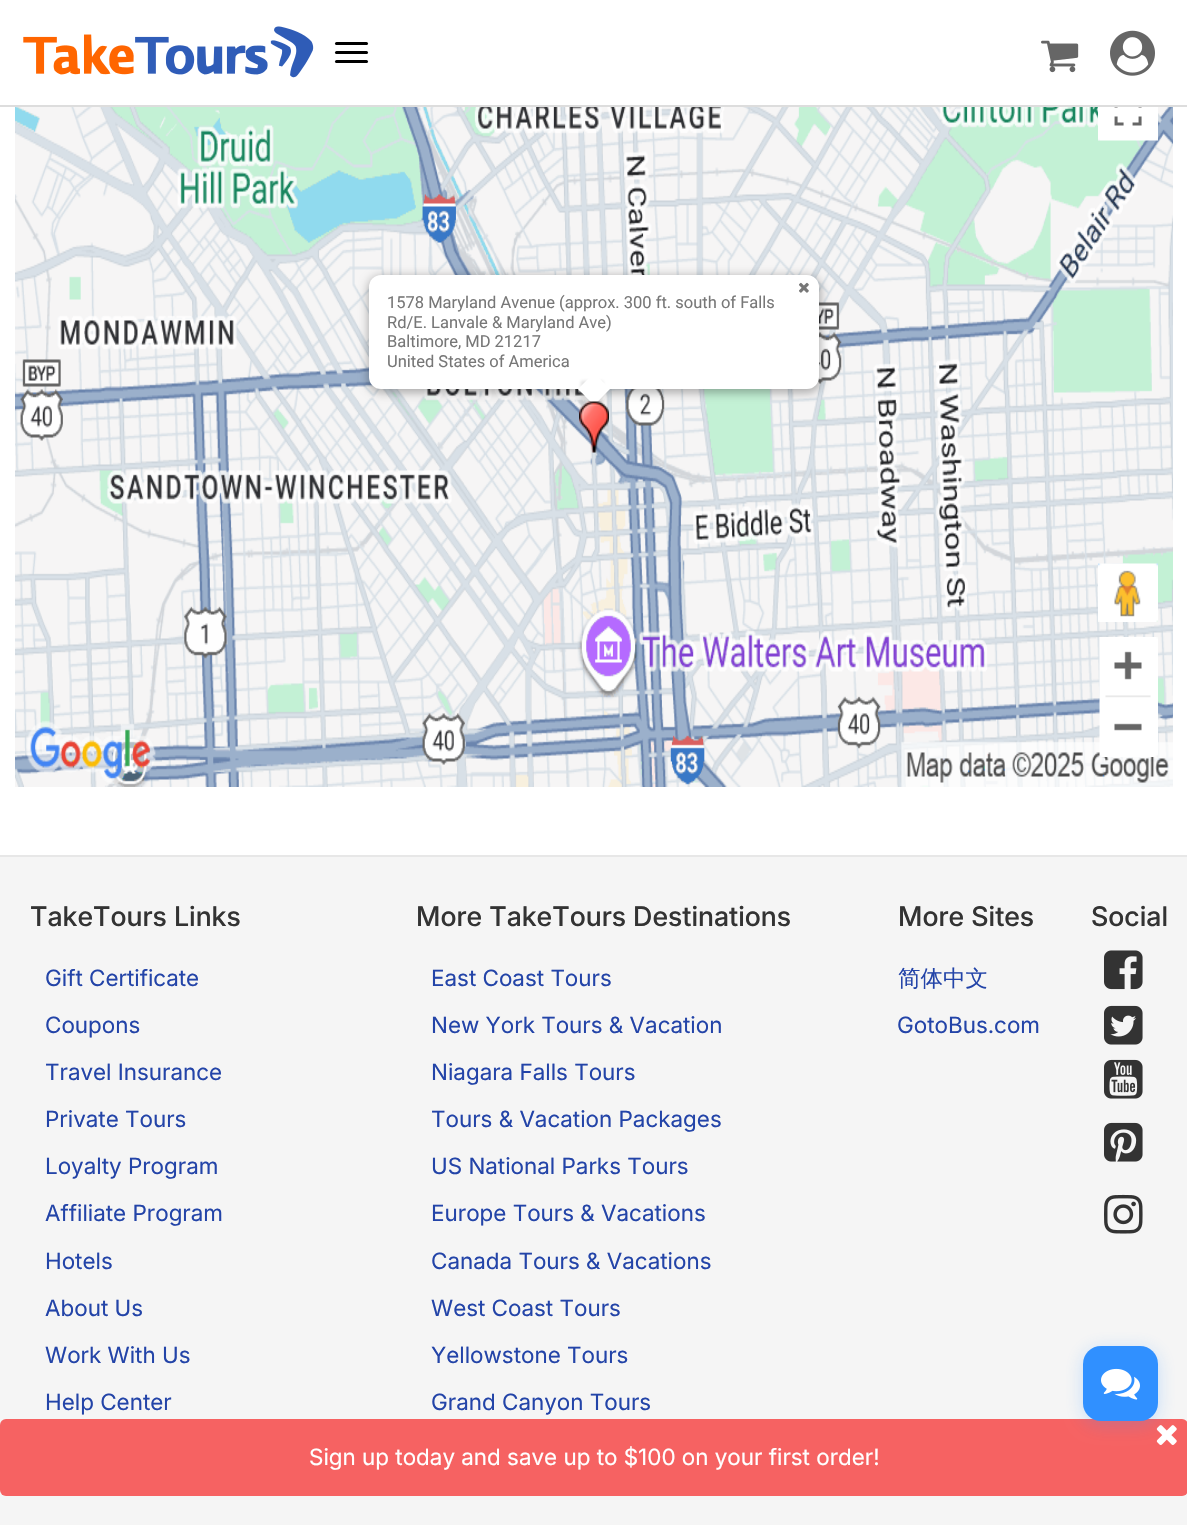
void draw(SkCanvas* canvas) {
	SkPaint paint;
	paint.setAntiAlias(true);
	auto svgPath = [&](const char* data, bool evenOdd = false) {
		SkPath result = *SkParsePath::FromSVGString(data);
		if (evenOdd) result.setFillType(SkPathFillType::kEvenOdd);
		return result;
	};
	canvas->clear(0xffffffff);
	paint.setColor(0xffdddddd);
	canvas->drawRect(SkRect::MakeXYWH(0, 105, 1187, 2), paint);
	canvas->drawImageRect(SkImages::DeferredFromEncodedData(SkData::MakeFromFileName("img1.png")), SkRect::MakeXYWH(23, 26, 291, 52), SkSamplingOptions());
	paint.setColor(0xff000000);
	canvas->drawRoundRect(SkRect::MakeXYWH(335, 42, 33, 3), 1.5, 1.5, paint);
	canvas->drawRoundRect(SkRect::MakeXYWH(335, 51, 33, 3), 1.5, 1.5, paint);
	canvas->drawRoundRect(SkRect::MakeXYWH(335, 60, 33, 3), 1.5, 1.5, paint);
	canvas->drawImageRect(SkImages::DeferredFromEncodedData(SkData::MakeFromFileName("img2.png")), SkRect::MakeXYWH(1041, 40, 38, 33), SkSamplingOptions());
	canvas->drawImageRect(SkImages::DeferredFromEncodedData(SkData::MakeFromFileName("img3.png")), SkRect::MakeXYWH(1110, 30, 45, 46), SkSamplingOptions());
	canvas->drawImageRect(SkImages::DeferredFromEncodedData(SkData::MakeFromFileName("img4.png")), SkRect::MakeXYWH(15, 107, 1158, 680), SkSamplingOptions());
	canvas->drawImageRect(SkImages::DeferredFromEncodedData(SkData::MakeFromFileName("img5.png")), SkRect::MakeXYWH(1098, 107, 60, 34), SkSamplingOptions());
	canvas->drawImageRect(SkImages::DeferredFromEncodedData(SkData::MakeFromFileName("img6.png")), SkRect::MakeXYWH(1098, 563, 60, 59), SkSamplingOptions());
	canvas->drawImageRect(SkImages::DeferredFromEncodedData(SkData::MakeFromFileName("img7.png")), SkRect::MakeXYWH(1099, 637, 59, 120), SkSamplingOptions());
	paint.setColor(0x4d000000);
	paint.setMaskFilter(SkMaskFilter::MakeBlur(kNormal_SkBlurStyle, 5));
	canvas->drawRoundRect(SkRect::MakeXYWH(368, 276, 453, 117), 14, 14, paint);
	paint.setMaskFilter(nullptr);
	paint.setColor(0xffffffff);
	canvas->drawRoundRect(SkRect::MakeXYWH(369, 275, 450, 114), 12, 12, paint);
	canvas->drawImageRect(SkImages::DeferredFromEncodedData(SkData::MakeFromFileName("img8.png")), SkRect::MakeXYWH(799, 282, 10, 11), SkSamplingOptions());
	SkFont f1(fontMgr->matchFamilyStyle("Roboto", SkFontStyle::Normal()), 16.5);
	f1.setSubpixel(true);
	paint.setColor(0xff777777);
	canvas->drawString("1578 Maryland Avenue (approx. 300 ft. south of Falls", 387, 308, f1, paint);
	canvas->drawString("Rd/E. Lanvale & Maryland Ave)", 387, 328, f1, paint);
	canvas->drawString("Baltimore, MD 21217", 387, 347, f1, paint);
	canvas->drawString("United States of America", 387, 367, f1, paint);
	canvas->save();
	canvas->clipPath(svgPath("M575 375H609V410H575ZM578 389L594 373L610 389L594 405Z", true), true);
	paint.setColor(0x66b2b2b2);
	paint.setMaskFilter(SkMaskFilter::MakeBlur(kNormal_SkBlurStyle, 1.5));
	canvas->drawRect(SkRect::MakeXYWH(581, 381, 22, 23), paint);
	paint.setMaskFilter(nullptr);
	canvas->restore();
	{
		const SkColor colors[] = {0xffffffff, 0x00ffffff, 0x00ffffff};
		const float stops[] = {0.5, 0.51, 1};
		const SkPoint ends[] = {{594, 405}, {594, 373}};
		paint.setShader(SkGradientShader::MakeLinear(ends, colors, stops, 3, SkTileMode::kClamp));
		paint.setAlpha(255);
	}
	canvas->drawPath(svgPath("M578 389L594 373L610 389L594 405Z"), paint);
	canvas->drawImageRect(SkImages::DeferredFromEncodedData(SkData::MakeFromFileName("img9.png")), SkRect::MakeXYWH(579, 401, 30, 52), SkSamplingOptions());
	paint.setShader(nullptr);
	paint.setColor(0xfff5f5f5);
	canvas->drawRect(SkRect::MakeXYWH(0, 857, 1187, 668), paint);
	paint.setColor(0xffe7e7e7);
	canvas->drawRect(SkRect::MakeXYWH(0, 855, 1187, 2), paint);
	SkFont f2(fontMgr->matchFamilyStyle("Inter", SkFontStyle(500, SkFontStyle::kNormal_Width, SkFontStyle::kUpright_Slant)), 27);
	f2.setSubpixel(true);
	paint.setColor(0xff333333);
	canvas->drawString("TakeTours Links", 30, 926, f2, paint);
	SkFont f3(fontMgr->matchFamilyStyle("Inter", SkFontStyle::Normal()), 22.5);
	f3.setSubpixel(true);
	paint.setColor(0xff2344a8);
	canvas->drawString("Gift Certificate", 45, 986, f3, paint);
	canvas->drawString("Coupons", 45, 1033, f3, paint);
	canvas->drawString("Travel Insurance", 45, 1080, f3, paint);
	canvas->drawString("Private Tours", 45, 1127, f3, paint);
	canvas->drawString("Loyalty Program", 45, 1174, f3, paint);
	canvas->drawString("Affiliate Program", 45, 1221, f3, paint);
	canvas->drawString("Hotels", 45, 1269, f3, paint);
	canvas->drawString("About Us", 45, 1316, f3, paint);
	canvas->drawString("Work With Us", 45, 1363, f3, paint);
	canvas->drawString("Help Center", 45, 1410, f3, paint);
	paint.setColor(0xff333333);
	canvas->drawString("More TakeTours Destinations", 416, 926, f2, paint);
	paint.setColor(0xff2344a8);
	canvas->drawString("East Coast Tours", 431, 986, f3, paint);
	canvas->drawString("New York Tours & Vacation", 431, 1033, f3, paint);
	canvas->drawString("Niagara Falls Tours", 431, 1080, f3, paint);
	canvas->drawString("Tours & Vacation Packages", 431, 1127, f3, paint);
	canvas->drawString("US National Parks Tours", 431, 1174, f3, paint);
	canvas->drawString("Europe Tours & Vacations", 431, 1221, f3, paint);
	canvas->drawString("Canada Tours & Vacations", 431, 1269, f3, paint);
	canvas->drawString("West Coast Tours", 431, 1316, f3, paint);
	canvas->drawString("Yellowstone Tours", 431, 1363, f3, paint);
	canvas->drawString("Grand Canyon Tours", 431, 1410, f3, paint);
	paint.setColor(0xff333333);
	canvas->drawString("More Sites", 898, 926, f2, paint);
	SkFont f4(fontMgr->matchFamilyStyle("WenQuanYi Zen Hei", SkFontStyle(500, SkFontStyle::kNormal_Width, SkFontStyle::kUpright_Slant)), 22.5);
	f4.setSubpixel(true);
	paint.setColor(0xff2344a8);
	canvas->drawString("简体中文", 898, 986, f4, paint);
	canvas->drawString("GotoBus.com", 897, 1033, f3, paint);
	paint.setColor(0xff333333);
	canvas->drawString("Social", 1091, 926, f2, paint);
	canvas->drawImageRect(SkImages::DeferredFromEncodedData(SkData::MakeFromFileName("img10.png")), SkRect::MakeXYWH(1104, 950, 39, 40), SkSamplingOptions());
	canvas->drawImageRect(SkImages::DeferredFromEncodedData(SkData::MakeFromFileName("img11.png")), SkRect::MakeXYWH(1104, 1005, 39, 40), SkSamplingOptions());
	canvas->drawImageRect(SkImages::DeferredFromEncodedData(SkData::MakeFromFileName("img12.png")), SkRect::MakeXYWH(1104, 1059, 39, 40), SkSamplingOptions());
	canvas->drawImageRect(SkImages::DeferredFromEncodedData(SkData::MakeFromFileName("img13.png")), SkRect::MakeXYWH(1104, 1122, 39, 40), SkSamplingOptions());
	canvas->drawImageRect(SkImages::DeferredFromEncodedData(SkData::MakeFromFileName("img14.png")), SkRect::MakeXYWH(1104, 1194, 39, 40), SkSamplingOptions());
	paint.setColor(0xfff66262);
	canvas->drawRoundRect(SkRect::MakeXYWH(0, 1419, 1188, 77), 6, 6, paint);
	canvas->drawImageRect(SkImages::DeferredFromEncodedData(SkData::MakeFromFileName("img16.png")), SkRect::MakeXYWH(1156, 1425, 21, 20), SkSamplingOptions());
	paint.setColor(0x403090ff);
	paint.setMaskFilter(SkMaskFilter::MakeBlur(kNormal_SkBlurStyle, 9));
	canvas->drawRoundRect(SkRect::MakeXYWH(1083, 1349, 75, 75), 18, 18, paint);
	paint.setMaskFilter(nullptr);
	paint.setColor(0xff3090ff);
	canvas->drawRoundRect(SkRect::MakeXYWH(1083, 1346, 75, 75), 18, 18, paint);
	canvas->drawImageRect(SkImages::DeferredFromEncodedData(SkData::MakeFromFileName("img15.png")), SkRect::MakeXYWH(1101, 1368, 39, 32), SkSamplingOptions());
	paint.setColor(0xffffffff);
	canvas->drawString("Sign up today and save up to $100 on your first order!", 309, 1465, f3, paint);
}
